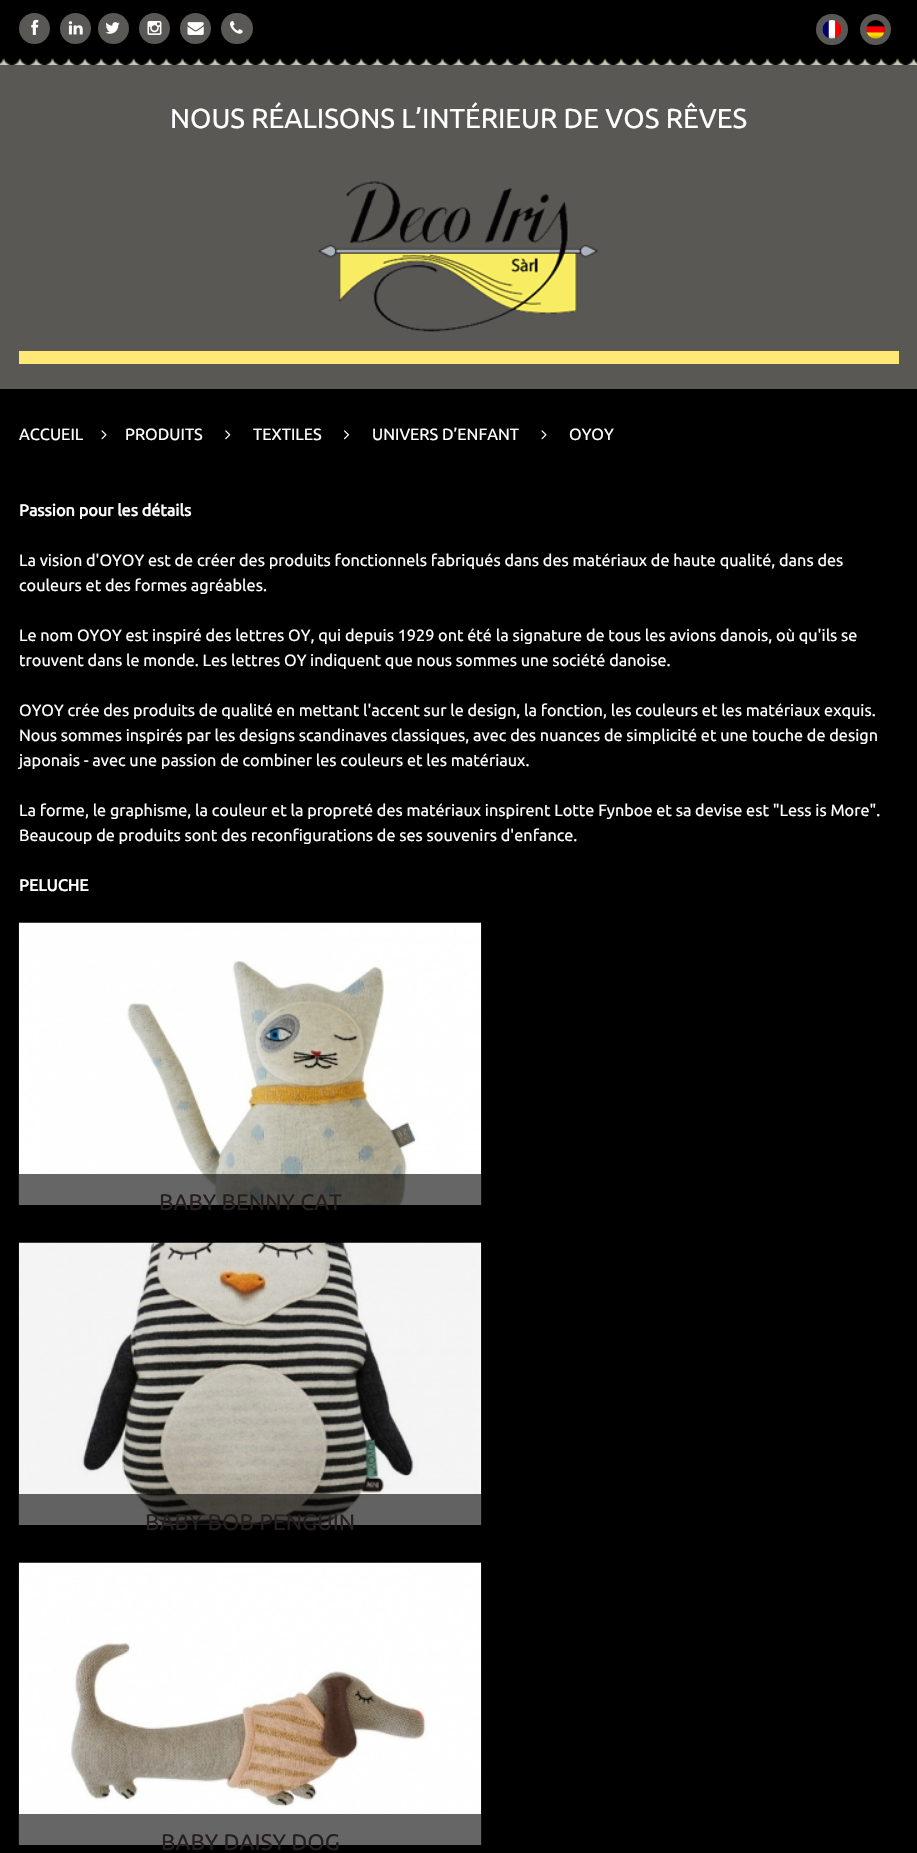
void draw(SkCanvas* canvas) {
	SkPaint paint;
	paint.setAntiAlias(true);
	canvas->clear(0xff000000);
	paint.setColor(0xff595854);
	canvas->drawCircle(34.5, 28.5, 15.5, paint);
	canvas->drawImageRect(SkImages::DeferredFromEncodedData(SkData::MakeFromFileName("img1.png")), SkRect::MakeXYWH(31, 19, 8, 16), SkSamplingOptions());
	canvas->drawCircle(75.5, 28.5, 15.5, paint);
	canvas->drawImageRect(SkImages::DeferredFromEncodedData(SkData::MakeFromFileName("img2.png")), SkRect::MakeXYWH(68, 21, 15, 14), SkSamplingOptions());
	canvas->drawCircle(113.5, 28.5, 15.5, paint);
	canvas->drawImageRect(SkImages::DeferredFromEncodedData(SkData::MakeFromFileName("img3.png")), SkRect::MakeXYWH(105, 22, 15, 12), SkSamplingOptions());
	canvas->drawCircle(154.5, 28.5, 15.5, paint);
	canvas->drawImageRect(SkImages::DeferredFromEncodedData(SkData::MakeFromFileName("img4.png")), SkRect::MakeXYWH(147, 21, 15, 14), SkSamplingOptions());
	canvas->drawCircle(195.5, 28.5, 15.5, paint);
	canvas->drawImageRect(SkImages::DeferredFromEncodedData(SkData::MakeFromFileName("img5.png")), SkRect::MakeXYWH(187, 22, 17, 13), SkSamplingOptions());
	canvas->drawRoundRect(SkRect::MakeXYWH(221, 13, 32, 31), 15.5, 15.5, paint);
	canvas->drawImageRect(SkImages::DeferredFromEncodedData(SkData::MakeFromFileName("img6.png")), SkRect::MakeXYWH(230, 21, 13, 13), SkSamplingOptions());
	canvas->drawRoundRect(SkRect::MakeXYWH(816, 14, 32, 31), 15.5, 15.5, paint);
	canvas->drawImageRect(SkImages::DeferredFromEncodedData(SkData::MakeFromFileName("img7.png")), SkRect::MakeXYWH(822, 20, 20, 19), SkSamplingOptions());
	canvas->drawCircle(875.5, 29.5, 15.5, paint);
	canvas->drawImageRect(SkImages::DeferredFromEncodedData(SkData::MakeFromFileName("img8.png")), SkRect::MakeXYWH(866, 20, 19, 19), SkSamplingOptions());
	canvas->drawRect(SkRect::MakeXYWH(0, 65, 917, 324), paint);
	canvas->drawImageRect(SkImages::DeferredFromEncodedData(SkData::MakeFromFileName("img9.png")), SkRect::MakeXYWH(0, 58, 917, 7), SkSamplingOptions());
	SkFont f1(fontMgr->matchFamilyStyle("Ubuntu", SkFontStyle::Normal()), 27.5);
	f1.setSubpixel(true);
	paint.setColor(0xffffffff);
	canvas->drawString("NOUS RÉALISONS L’INTÉRIEUR DE VOS RÊVES", 170, 128, f1, paint);
	canvas->drawImageRect(SkImages::DeferredFromEncodedData(SkData::MakeFromFileName("img10.png")), SkRect::MakeXYWH(318, 181, 280, 151), SkSamplingOptions());
	paint.setColor(0xffffe875);
	canvas->drawRect(SkRect::MakeXYWH(19, 351, 880, 13), paint);
	SkFont f2(fontMgr->matchFamilyStyle("Ubuntu", SkFontStyle::Normal()), 16.25);
	f2.setSubpixel(true);
	paint.setColor(0xffffffff);
	canvas->drawString("ACCUEIL", 19, 440, f2, paint);
	canvas->drawImageRect(SkImages::DeferredFromEncodedData(SkData::MakeFromFileName("img11.png")), SkRect::MakeXYWH(101, 430, 6, 10), SkSamplingOptions());
	canvas->drawString("PRODUITS", 125, 440, f2, paint);
	canvas->drawImageRect(SkImages::DeferredFromEncodedData(SkData::MakeFromFileName("img12.png")), SkRect::MakeXYWH(225, 430, 6, 10), SkSamplingOptions());
	canvas->drawString("TEXTILES", 253, 440, f2, paint);
	canvas->drawImageRect(SkImages::DeferredFromEncodedData(SkData::MakeFromFileName("img13.png")), SkRect::MakeXYWH(343, 430, 7, 10), SkSamplingOptions());
	canvas->drawString("UNIVERS D’ENFANT", 372, 440, f2, paint);
	canvas->drawImageRect(SkImages::DeferredFromEncodedData(SkData::MakeFromFileName("img11.png")), SkRect::MakeXYWH(541, 430, 6, 10), SkSamplingOptions());
	canvas->drawString("OYOY", 569, 440, f2, paint);
	SkFont f3(fontMgr->matchFamilyStyle("Ubuntu", SkFontStyle::Bold()), 16.25);
	f3.setSubpixel(true);
	canvas->drawString("Passion pour les détails", 19, 516, f3, paint);
	canvas->drawString("La vision d'OYOY est de créer des produits fonctionnels fabriqués dans des matériaux de haute qualité, dans des", 19, 566, f2, paint);
	canvas->drawString("couleurs et des formes agréables.", 19, 591, f2, paint);
	canvas->drawString("Le nom OYOY est inspiré des lettres OY, qui depuis 1929 ont été la signature de tous les avions danois, où qu'ils se", 19, 641, f2, paint);
	canvas->drawString("trouvent dans le monde. Les lettres OY indiquent que nous sommes une société danoise.", 19, 666, f2, paint);
	canvas->drawString("OYOY crée des produits de qualité en mettant l'accent sur le design, la fonction, les couleurs et les matériaux exquis.", 19, 716, f2, paint);
	canvas->drawString("Nous sommes inspirés par les designs scandinaves classiques, avec des nuances de simplicité et une touche de design", 19, 741, f2, paint);
	canvas->drawString("japonais - avec une passion de combiner les couleurs et les matériaux.", 19, 766, f2, paint);
	canvas->drawString("La forme, le graphisme, la couleur et la propreté des matériaux inspirent Lotte Fynboe et sa devise est \"Less is More\".", 19, 816, f2, paint);
	canvas->drawString("Beaucoup de produits sont des reconfigurations de ses souvenirs d'enfance.", 19, 841, f2, paint);
	canvas->drawString("PELUCHE", 19, 891, f3, paint);
	canvas->drawImageRect(SkImages::DeferredFromEncodedData(SkData::MakeFromFileName("img14.png")), SkRect::MakeXYWH(18, 922, 464, 283), SkSamplingOptions());
	paint.setColor(0x99000000);
	canvas->drawRect(SkRect::MakeXYWH(19, 1174, 462, 31), paint);
	SkFont f4(fontMgr->matchFamilyStyle("Ubuntu", SkFontStyle::Normal()), 22.5);
	f4.setSubpixel(true);
	paint.setColor(0xff261e1f);
	canvas->drawString("BABY BENNY CAT", 159, 1210, f4, paint);
	canvas->drawImageRect(SkImages::DeferredFromEncodedData(SkData::MakeFromFileName("img15.png")), SkRect::MakeXYWH(18, 1242, 464, 283), SkSamplingOptions());
	paint.setColor(0x99000000);
	canvas->drawRect(SkRect::MakeXYWH(19, 1494, 462, 31), paint);
	paint.setColor(0xff261e1f);
	canvas->drawString("BABY BOB PENGUIN", 145, 1530, f4, paint);
	canvas->drawImageRect(SkImages::DeferredFromEncodedData(SkData::MakeFromFileName("img16.png")), SkRect::MakeXYWH(18, 1562, 464, 283), SkSamplingOptions());
	paint.setColor(0x99000000);
	canvas->drawRect(SkRect::MakeXYWH(19, 1814, 462, 31), paint);
	paint.setColor(0xff261e1f);
	canvas->drawString("BABY DAISY DOG", 161, 1850, f4, paint);
}
